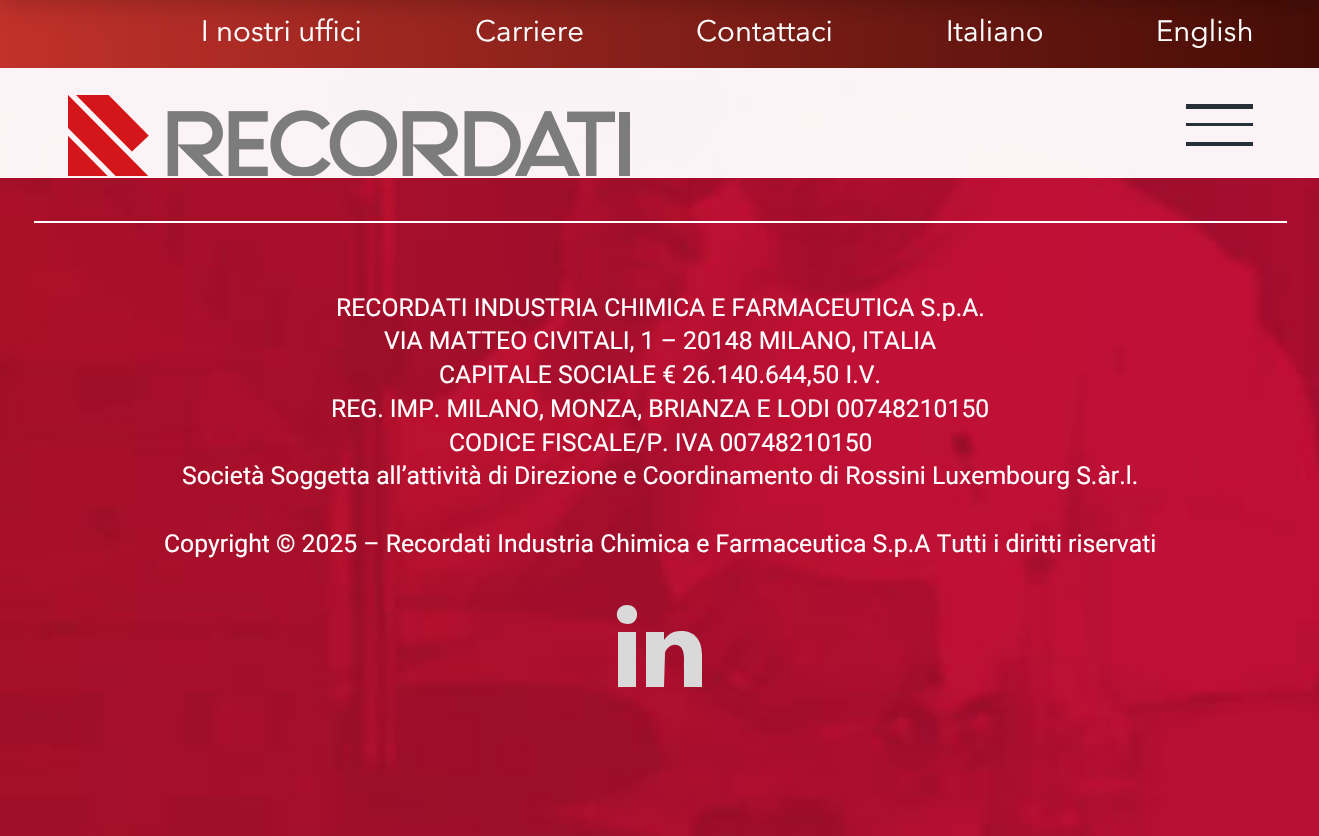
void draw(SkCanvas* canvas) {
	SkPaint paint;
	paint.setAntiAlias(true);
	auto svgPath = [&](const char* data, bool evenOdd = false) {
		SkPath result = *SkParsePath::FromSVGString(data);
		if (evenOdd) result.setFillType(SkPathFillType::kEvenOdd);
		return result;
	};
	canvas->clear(0xffffffff);
	{
		const SkColor colors[] = {0xffc2312b, 0xff450d06};
		const float stops[] = {0, 1};
		const SkPoint ends[] = {{0, 34}, {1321, 34}};
		paint.setShader(SkGradientShader::MakeLinear(ends, colors, stops, 2, SkTileMode::kClamp));
		paint.setAlpha(255);
	}
	canvas->drawRect(SkRect::MakeXYWH(0, 0, 1319, 68), paint);
	paint.setShader(nullptr);
	paint.setColor(0x40000000);
	paint.setMaskFilter(SkMaskFilter::MakeBlur(kNormal_SkBlurStyle, 14.5));
	canvas->drawRect(SkRect::MakeXYWH(0, -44, 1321, 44), paint);
	paint.setMaskFilter(nullptr);
	canvas->drawImageRect(SkImages::DeferredFromEncodedData(SkData::MakeFromFileName("img2.png")), SkRect::MakeXYWH(0, 68, 1319, 768), SkSamplingOptions());
	paint.setColor(0xf2ffffff);
	canvas->drawRect(SkRect::MakeXYWH(0, 68, 1319, 110), paint);
	SkFont f1(fontMgr->matchFamilyStyle("Avenir Next", SkFontStyle::Normal()), 29.25);
	f1.setSubpixel(true);
	paint.setColor(0xffffffff);
	canvas->drawString("I nostri uffici", 201, 41, f1, paint);
	canvas->drawString("Carriere", 475, 41, f1, paint);
	canvas->drawString("Contattaci", 696, 41, f1, paint);
	canvas->drawString("Italiano", 946, 41, f1, paint);
	canvas->drawString("English", 1156, 41, f1, paint);
	canvas->drawImageRect(SkImages::DeferredFromEncodedData(SkData::MakeFromFileName("img1.png")), SkRect::MakeXYWH(68, 95, 562, 81), SkSamplingOptions());
	paint.setColor(0xff253038);
	canvas->drawRect(SkRect::MakeXYWH(1186, 104, 67, 5), paint);
	canvas->drawRect(SkRect::MakeXYWH(1186, 123, 67, 3), paint);
	canvas->drawRect(SkRect::MakeXYWH(1186, 142, 67, 4), paint);
	paint.setColor(0xffffffff);
	canvas->drawRect(SkRect::MakeXYWH(34, 221, 1253, 2), paint);
	SkFont f2(fontMgr->matchFamilyStyle("Roboto", SkFontStyle::Normal()), 24.75);
	f2.setSubpixel(true);
	canvas->drawString("RECORDATI INDUSTRIA CHIMICA E FARMACEUTICA S.p.A.", 336, 316, f2, paint);
	canvas->drawString("VIA MATTEO CIVITALI, 1 – 20148 MILANO, ITALIA", 384, 349, f2, paint);
	canvas->drawString("CAPITALE SOCIALE € 26.140.644,50 I.V.", 439, 383, f2, paint);
	canvas->drawString("REG. IMP. MILANO, MONZA, BRIANZA E LODI 00748210150", 331, 417, f2, paint);
	canvas->drawString("CODICE FISCALE/P. IVA 00748210150", 449, 451, f2, paint);
	canvas->drawString("Società Soggetta all’attività di Direzione e Coordinamento di Rossini Luxembourg S.àr.l.", 182, 484, f2, paint);
	canvas->drawString("Copyright © 2025 – Recordati Industria Chimica e Farmaceutica S.p.A Tutti i diritti riservati", 164, 552, f2, paint);
	paint.setColor(0xffd9d9d9);
	canvas->drawPath(svgPath("M702 655V687H684V667C684 660 686 643 673 645C669 646 666 649 665 653L664 687H646V632H664V640C667 636 671 631 681 631C693 631 702 638 702 655ZM627 605C614 605 613 623 627 624C640 625 641 605 627 605ZM618 687H636V632H618Z"), paint);
}
